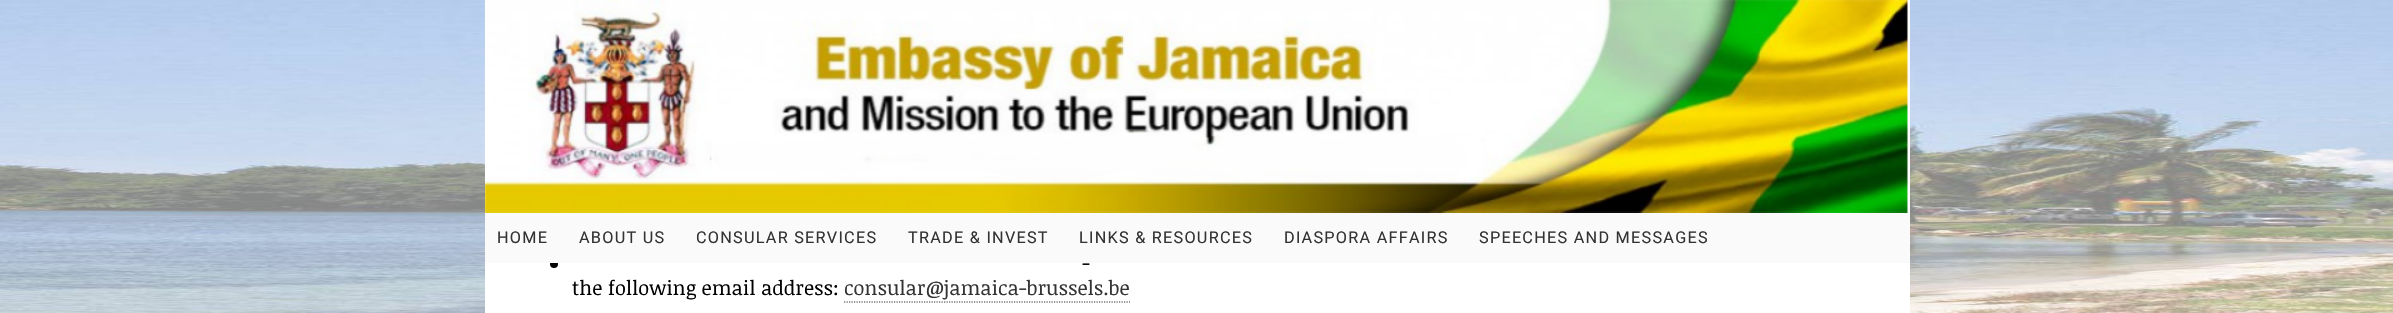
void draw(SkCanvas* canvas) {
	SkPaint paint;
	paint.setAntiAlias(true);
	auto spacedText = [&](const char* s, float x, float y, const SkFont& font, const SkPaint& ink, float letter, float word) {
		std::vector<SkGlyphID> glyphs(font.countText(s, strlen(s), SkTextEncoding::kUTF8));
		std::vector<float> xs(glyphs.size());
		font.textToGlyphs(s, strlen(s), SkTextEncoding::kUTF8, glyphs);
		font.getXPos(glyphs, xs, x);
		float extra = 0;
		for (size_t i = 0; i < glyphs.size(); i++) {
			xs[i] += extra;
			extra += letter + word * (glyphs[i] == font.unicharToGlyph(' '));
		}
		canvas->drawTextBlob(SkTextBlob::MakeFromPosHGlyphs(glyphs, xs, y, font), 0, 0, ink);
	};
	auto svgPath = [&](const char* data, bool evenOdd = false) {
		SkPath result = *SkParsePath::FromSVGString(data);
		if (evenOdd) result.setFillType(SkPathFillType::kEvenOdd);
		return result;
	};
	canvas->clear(0xffffffff);
	canvas->drawImageRect(SkImages::DeferredFromEncodedData(SkData::MakeFromFileName("img1.png")), SkRect::MakeXYWH(0, 0, 2393, 313), SkSamplingOptions());
	paint.setColor(0xffffffff);
	canvas->drawRect(SkRect::MakeXYWH(485, 0, 1425, 313), paint);
	canvas->drawImageRect(SkImages::DeferredFromEncodedData(SkData::MakeFromFileName("img2.png")), SkRect::MakeXYWH(484, 0, 1424, 213), SkSamplingOptions());
	paint.setColor(0xff000000);
	canvas->drawCircle(554, 264, 4, paint);
	paint.setColor(0xfffafafa);
	canvas->drawRect(SkRect::MakeXYWH(485, 213, 1425, 50), paint);
	SkFont f1(fontMgr->matchFamilyStyle("Roboto", SkFontStyle::Normal()), 16.25);
	f1.setSubpixel(true);
	paint.setColor(0xff333333);
	spacedText("HOME", 497, 243, f1, paint, 1.25, 0);
	spacedText("ABOUT US", 579, 243, f1, paint, 1.25, 0);
	spacedText("CONSULAR SERVICES", 696, 243, f1, paint, 1.25, 0);
	spacedText("TRADE & INVEST", 908, 243, f1, paint, 1.25, 0);
	spacedText("LINKS & RESOURCES", 1079, 243, f1, paint, 1.25, 0);
	spacedText("DIASPORA AFFAIRS", 1284, 243, f1, paint, 1.25, 0);
	spacedText("SPEECHES AND MESSAGES", 1479, 243, f1, paint, 1.25, 0);
	SkFont f2(fontMgr->matchFamilyStyle("Noticia Text", SkFontStyle::Normal()), 20);
	f2.setSubpixel(true);
	paint.setColor(0xff000000);
	canvas->drawString("-", 1082, 270, f2, paint);
	canvas->drawString("the following email address:", 572, 295, f2, paint);
	paint.setColor(0xff333333);
	canvas->drawString("consular@jamaica-brussels.be", 844, 295, f2, paint);
	paint.setStroke(true);
	paint.setStrokeWidth(1.2);
	paint.setPathEffect(SkDashPathEffect::Make({{1.25f, 1.25f}}, 0));
	canvas->drawPath(svgPath("M844 302H1130"), paint);
	paint.setPathEffect(nullptr);
}
